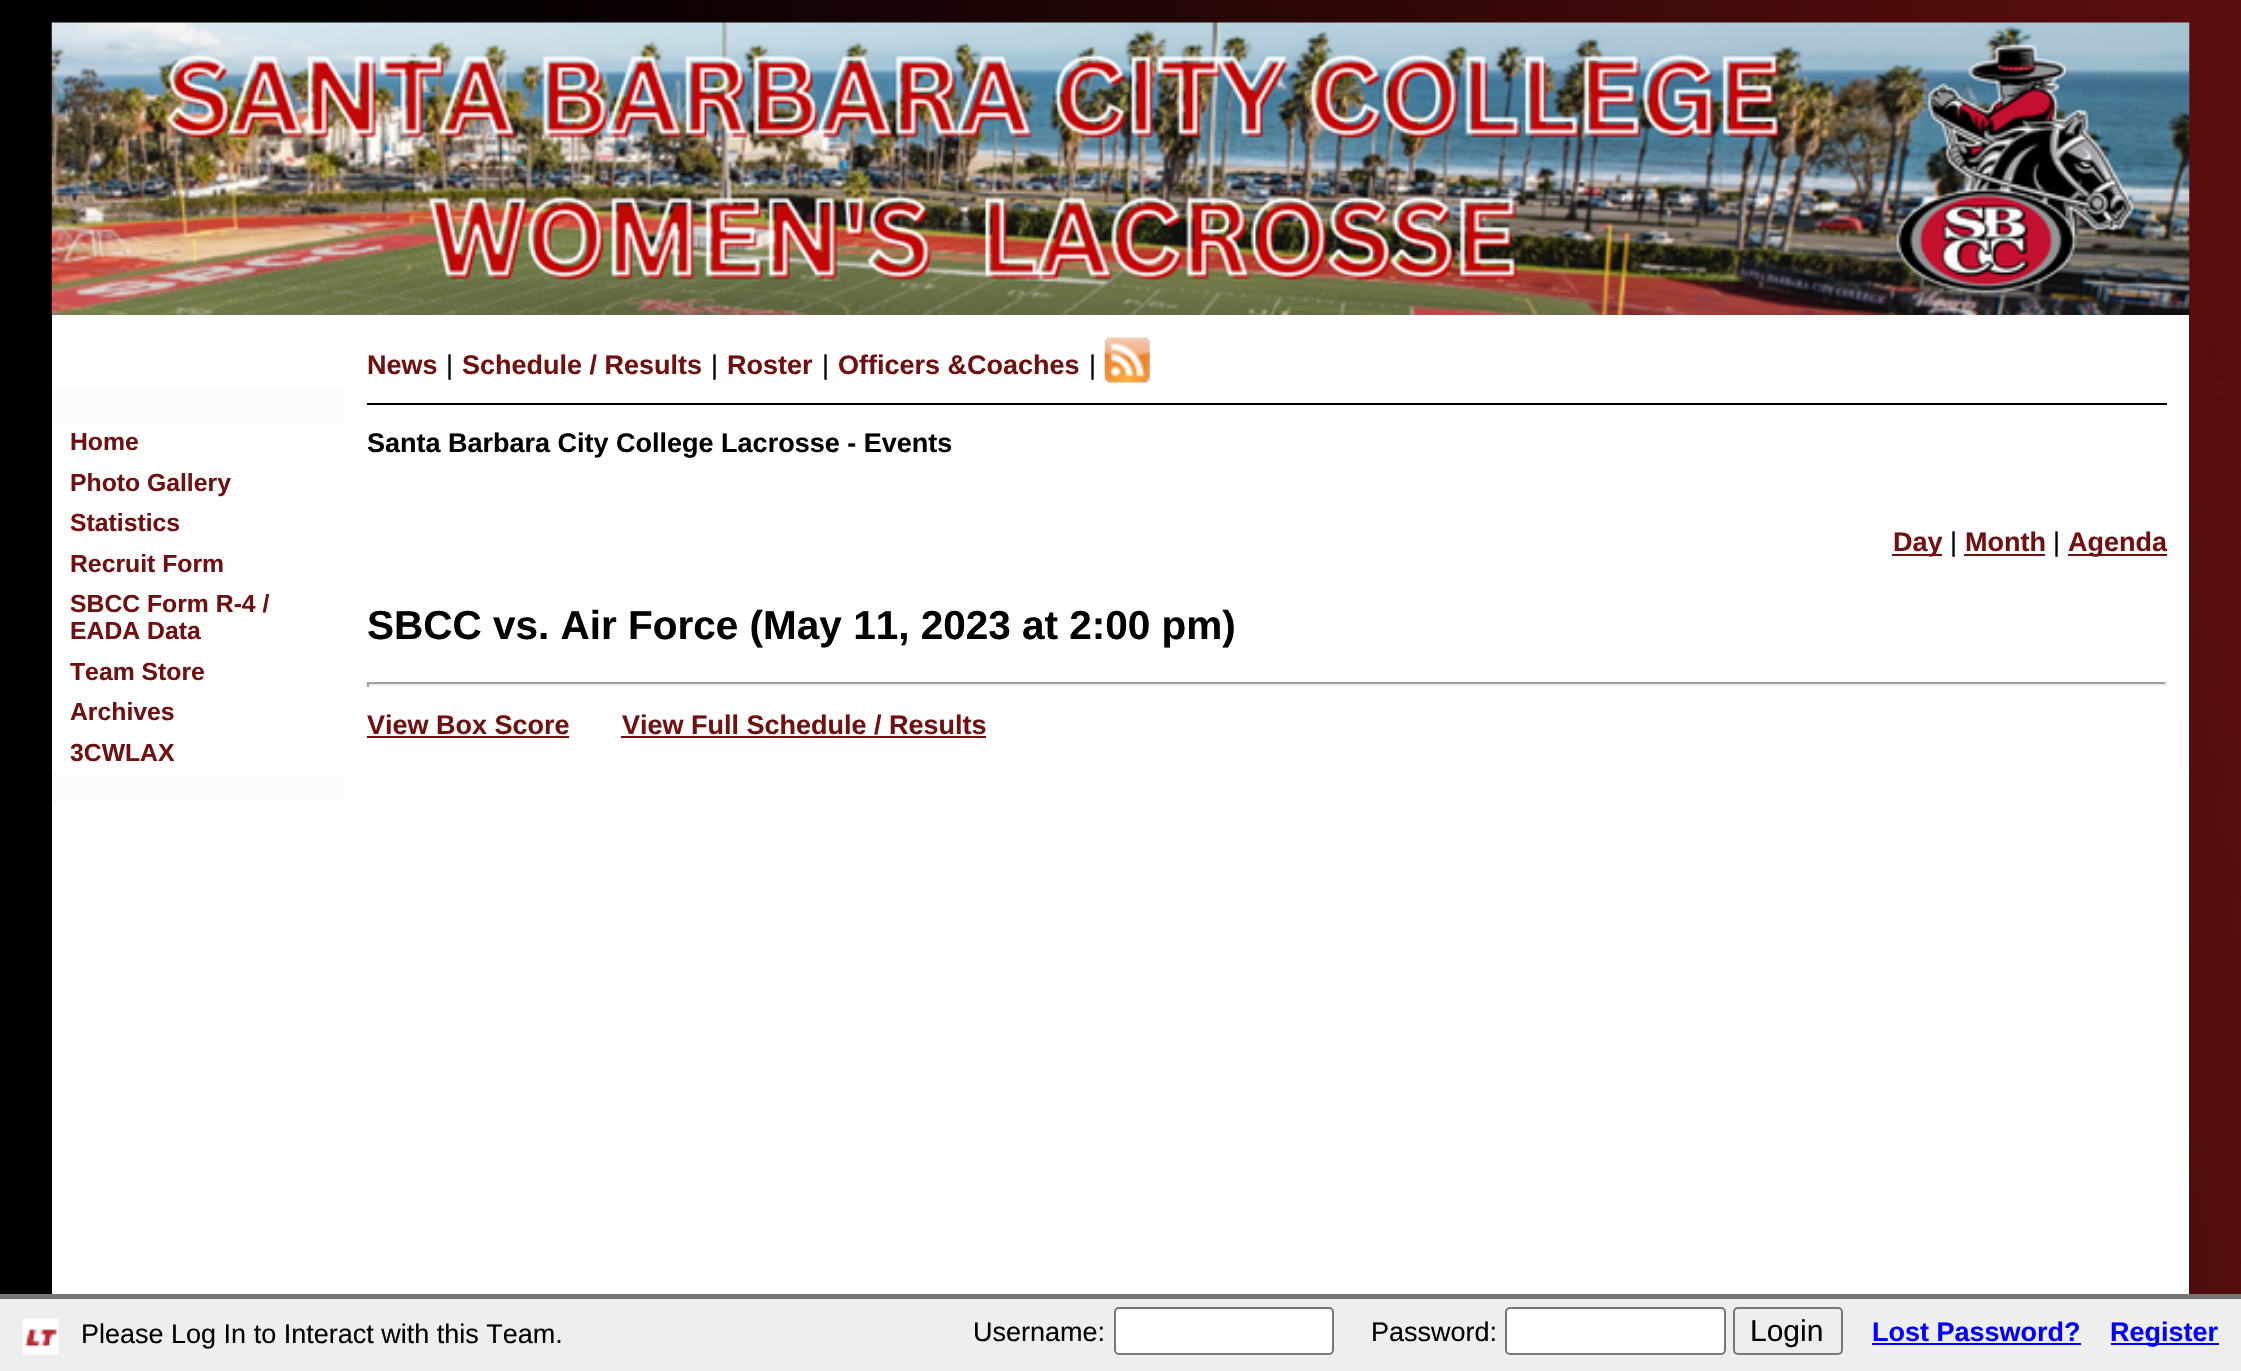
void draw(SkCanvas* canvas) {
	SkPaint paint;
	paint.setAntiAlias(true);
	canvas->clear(0xffffffff);
	canvas->drawImageRect(SkImages::DeferredFromEncodedData(SkData::MakeFromFileName("img1.png")), SkRect::MakeXYWH(0, 0, 2241, 1294), SkSamplingOptions());
	paint.setColor(0xffffffff);
	canvas->drawRect(SkRect::MakeXYWH(52, 315, 2137, 979), paint);
	canvas->drawImageRect(SkImages::DeferredFromEncodedData(SkData::MakeFromFileName("img2.png")), SkRect::MakeXYWH(51, 22, 2139, 293), SkSamplingOptions());
	paint.setColor(0xfffcfcfc);
	canvas->drawRect(SkRect::MakeXYWH(52, 387, 292, 36), paint);
	SkFont f1(fontMgr->matchFamilyStyle("Liberation Sans", SkFontStyle::Bold()), 24.75);
	f1.setSubpixel(true);
	paint.setColor(0xff701111);
	canvas->drawString("Home", 70, 450, f1, paint);
	canvas->drawString("Photo Gallery", 70, 491, f1, paint);
	canvas->drawString("Statistics", 70, 531, f1, paint);
	canvas->drawString("Recruit Form", 70, 572, f1, paint);
	canvas->drawString("SBCC Form R-4 /", 70, 612, f1, paint);
	canvas->drawString("EADA Data", 70, 639, f1, paint);
	canvas->drawString("Team Store", 70, 680, f1, paint);
	canvas->drawString("Archives", 70, 720, f1, paint);
	canvas->drawString("3CWLAX", 70, 761, f1, paint);
	paint.setColor(0xfffcfcfc);
	canvas->drawRect(SkRect::MakeXYWH(52, 770, 292, 36), paint);
	paint.setColor(0xff000000);
	canvas->drawRect(SkRect::MakeXYWH(367, 403, 1800, 2), paint);
	SkFont f2(fontMgr->matchFamilyStyle("Liberation Sans", SkFontStyle::Bold()), 27);
	f2.setSubpixel(true);
	paint.setColor(0xff701111);
	canvas->drawString("News", 367, 374, f2, paint);
	SkFont f3(fontMgr->matchFamilyStyle("Liberation Sans", SkFontStyle::Normal()), 27);
	f3.setSubpixel(true);
	paint.setColor(0xff000000);
	canvas->drawString("|", 446, 374, f3, paint);
	paint.setColor(0xff701111);
	canvas->drawString("Schedule / Results", 462, 374, f2, paint);
	paint.setColor(0xff000000);
	canvas->drawString("|", 711, 374, f3, paint);
	paint.setColor(0xff701111);
	canvas->drawString("Roster", 727, 374, f2, paint);
	paint.setColor(0xff000000);
	canvas->drawString("|", 822, 374, f3, paint);
	paint.setColor(0xff701111);
	canvas->drawString("Officers &Coaches", 838, 374, f2, paint);
	paint.setColor(0xff000000);
	canvas->drawString("|", 1089, 374, f3, paint);
	canvas->drawImageRect(SkImages::DeferredFromEncodedData(SkData::MakeFromFileName("img3.png")), SkRect::MakeXYWH(1104, 337, 46, 46), SkSamplingOptions());
	canvas->drawString("Santa Barbara City College Lacrosse - Events", 367, 452, f2, paint);
	paint.setColor(0xff701111);
	canvas->drawRect(SkRect::MakeXYWH(1892, 554, 50, 2), paint);
	canvas->drawString("Day", 1893, 551, f2, paint);
	paint.setColor(0xff000000);
	canvas->drawString("|", 1950, 551, f3, paint);
	paint.setColor(0xff701111);
	canvas->drawString("Month", 1965, 551, f2, paint);
	canvas->drawRect(SkRect::MakeXYWH(1964, 554, 81, 2), paint);
	paint.setColor(0xff000000);
	canvas->drawString("|", 2053, 551, f3, paint);
	paint.setColor(0xff701111);
	canvas->drawRect(SkRect::MakeXYWH(2068, 554, 99, 2), paint);
	canvas->drawString("Agenda", 2068, 551, f2, paint);
	SkFont f4(fontMgr->matchFamilyStyle("Liberation Sans", SkFontStyle::Bold()), 40.5);
	f4.setSubpixel(true);
	paint.setColor(0xff000000);
	canvas->drawString("SBCC vs. Air Force (May 11, 2023 at 2:00 pm)", 367, 639, f4, paint);
	paint.setColor(0xff9f9f9f);
	canvas->drawRect(SkRect::MakeXYWH(367, 682, 1800, 2), paint);
	paint.setColor(0xffeeeeee);
	canvas->drawRect(SkRect::MakeXYWH(2165, 682, 2, 5), paint);
	canvas->drawRect(SkRect::MakeXYWH(367, 684, 1800, 2), paint);
	paint.setColor(0xff9f9f9f);
	canvas->drawRect(SkRect::MakeXYWH(367, 682, 2, 5), paint);
	paint.setColor(0xff701111);
	canvas->drawString("View Box Score", 367, 734, f2, paint);
	canvas->drawRect(SkRect::MakeXYWH(367, 736, 202, 2), paint);
	canvas->drawString("View Full Schedule / Results", 622, 734, f2, paint);
	canvas->drawRect(SkRect::MakeXYWH(621, 736, 365, 2), paint);
	paint.setColor(0xffeeeeee);
	canvas->drawRect(SkRect::MakeXYWH(0, 1299, 2241, 72), paint);
	canvas->drawImageRect(SkImages::DeferredFromEncodedData(SkData::MakeFromFileName("img4.png")), SkRect::MakeXYWH(22, 1318, 37, 37), SkSamplingOptions());
	paint.setColor(0xff777777);
	canvas->drawRect(SkRect::MakeXYWH(0, 1294, 2241, 5), paint);
	paint.setColor(0xff000000);
	canvas->drawString("Please Log In to Interact with this Team.", 81, 1343, f3, paint);
	canvas->drawString("Username:", 973, 1341, f3, paint);
	paint.setColor(0xffffffff);
	canvas->drawRoundRect(SkRect::MakeXYWH(1115, 1308, 218, 46), 4, 4, paint);
	paint.setStroke(true);
	paint.setStrokeWidth(2);
	paint.setColor(0xff767676);
	canvas->drawRoundRect(SkRect::MakeXYWH(1115, 1308, 218, 46), 4, 4, paint);
	paint.setStroke(false);
	paint.setColor(0xff000000);
	canvas->drawString("Password:", 1371, 1341, f3, paint);
	paint.setColor(0xffffffff);
	canvas->drawRoundRect(SkRect::MakeXYWH(1506, 1308, 219, 46), 4, 4, paint);
	paint.setStroke(true);
	paint.setColor(0xff767676);
	canvas->drawRoundRect(SkRect::MakeXYWH(1506, 1308, 219, 46), 4, 4, paint);
	canvas->drawRoundRect(SkRect::MakeXYWH(1734, 1308, 108, 46), 4, 4, paint);
	SkFont f5(fontMgr->matchFamilyStyle("Liberation Sans", SkFontStyle::Normal()), 30);
	f5.setSubpixel(true);
	paint.setStroke(false);
	paint.setColor(0xff000000);
	canvas->drawString("Login", 1750, 1341, f5, paint);
	paint.setColor(0xff0000ff);
	canvas->drawString("Lost Password?", 1872, 1341, f2, paint);
	canvas->drawRect(SkRect::MakeXYWH(1872, 1343, 209, 2), paint);
	canvas->drawRect(SkRect::MakeXYWH(2111, 1343, 108, 2), paint);
	canvas->drawString("Register", 2110, 1341, f2, paint);
}
